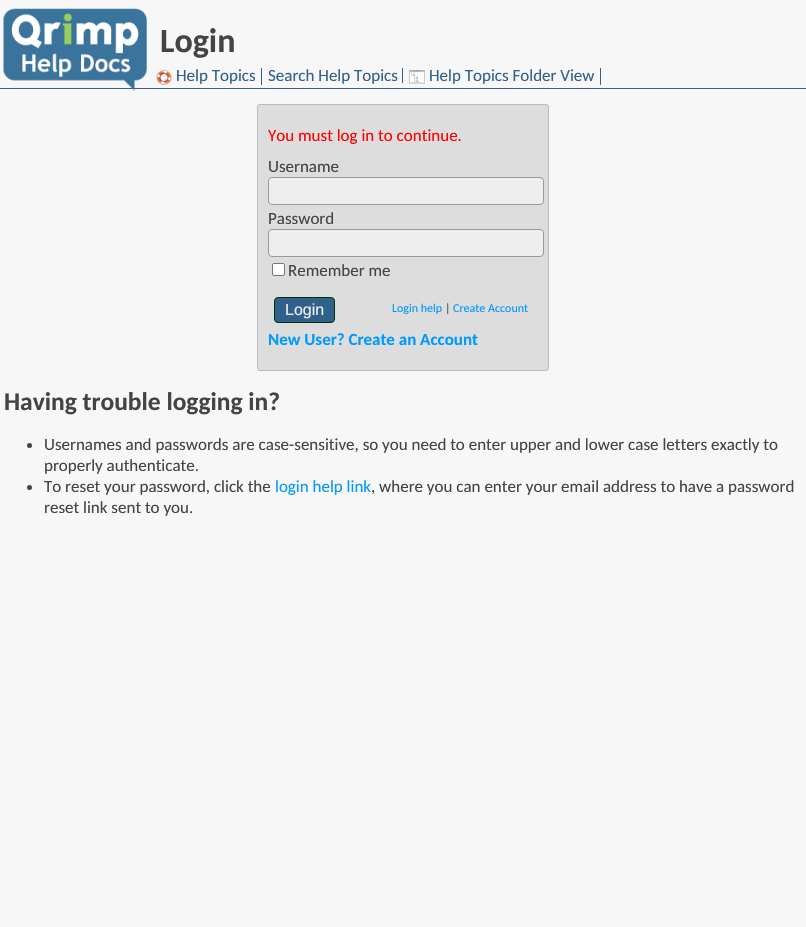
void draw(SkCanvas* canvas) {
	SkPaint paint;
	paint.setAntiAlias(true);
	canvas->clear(0xfff7f7f7);
	paint.setColor(0xff30618d);
	canvas->drawRect(SkRect::MakeXYWH(0, 88, 806, 1), paint);
	canvas->drawImageRect(SkImages::DeferredFromEncodedData(SkData::MakeFromFileName("img1.png")), SkRect::MakeXYWH(3, 8, 144, 83), SkSamplingOptions());
	SkFont f1(fontMgr->matchFamilyStyle("Carlito", SkFontStyle::Bold()), 34);
	f1.setSubpixel(true);
	paint.setColor(0xff444444);
	canvas->drawString("Login", 160, 52, f1, paint);
	paint.setColor(0xff30618d);
	canvas->drawRect(SkRect::MakeXYWH(261, 68, 1, 17), paint);
	canvas->drawImageRect(SkImages::DeferredFromEncodedData(SkData::MakeFromFileName("img2.png")), SkRect::MakeXYWH(156, 69, 16, 16), SkSamplingOptions());
	SkFont f2(fontMgr->matchFamilyStyle("Carlito", SkFontStyle::Normal()), 17);
	f2.setSubpixel(true);
	canvas->drawString("Help Topics", 176, 81, f2, paint);
	canvas->drawRect(SkRect::MakeXYWH(402, 68, 1, 15), paint);
	canvas->drawString("Search Help Topics", 268, 81, f2, paint);
	canvas->drawRect(SkRect::MakeXYWH(600, 68, 1, 17), paint);
	canvas->drawImageRect(SkImages::DeferredFromEncodedData(SkData::MakeFromFileName("img3.png")), SkRect::MakeXYWH(409, 70, 16, 14), SkSamplingOptions());
	canvas->drawString("Help Topics Folder View", 429, 81, f2, paint);
	paint.setColor(0xffdddddd);
	canvas->drawRoundRect(SkRect::MakeXYWH(257.5, 104.5, 291, 266), 2.5, 2.5, paint);
	paint.setStroke(true);
	paint.setStrokeWidth(1);
	paint.setColor(0xffbbbbbb);
	canvas->drawRoundRect(SkRect::MakeXYWH(257.5, 104.5, 291, 266), 2.5, 2.5, paint);
	paint.setStroke(false);
	paint.setColor(0xffff0000);
	canvas->drawString("You must log in to continue.", 268, 141, f2, paint);
	paint.setColor(0xff444444);
	canvas->drawString("Username", 268, 172, f2, paint);
	paint.setColor(0xffeeeeee);
	canvas->drawRoundRect(SkRect::MakeXYWH(268.5, 177.5, 275, 27), 3.5, 3.5, paint);
	paint.setStroke(true);
	paint.setColor(0xff999999);
	canvas->drawRoundRect(SkRect::MakeXYWH(268.5, 177.5, 275, 27), 3.5, 3.5, paint);
	paint.setStroke(false);
	paint.setColor(0xff444444);
	canvas->drawString("Password", 268, 224, f2, paint);
	paint.setColor(0xffeeeeee);
	canvas->drawRoundRect(SkRect::MakeXYWH(268.5, 229.5, 275, 27), 3.5, 3.5, paint);
	paint.setStroke(true);
	paint.setColor(0xff999999);
	canvas->drawRoundRect(SkRect::MakeXYWH(268.5, 229.5, 275, 27), 3.5, 3.5, paint);
	paint.setStroke(false);
	paint.setColor(0xffffffff);
	canvas->drawRoundRect(SkRect::MakeXYWH(272.5, 263.5, 12, 12), 1.5, 1.5, paint);
	paint.setStroke(true);
	paint.setColor(0xff767676);
	canvas->drawRoundRect(SkRect::MakeXYWH(272.5, 263.5, 12, 12), 1.5, 1.5, paint);
	paint.setStroke(false);
	paint.setColor(0xff444444);
	canvas->drawString("Remember me", 288, 276, f2, paint);
	paint.setColor(0xff30618d);
	canvas->drawRoundRect(SkRect::MakeXYWH(274.5, 297.5, 60, 25), 3.5, 3.5, paint);
	paint.setStroke(true);
	paint.setColor(0xff003300);
	canvas->drawRoundRect(SkRect::MakeXYWH(274.5, 297.5, 60, 25), 3.5, 3.5, paint);
	SkFont f3(fontMgr->matchFamilyStyle("Liberation Sans", SkFontStyle::Normal()), 16);
	f3.setSubpixel(true);
	paint.setStroke(false);
	paint.setColor(0xffeeeeee);
	canvas->drawString("Login", 285, 315, f3, paint);
	SkFont f4(fontMgr->matchFamilyStyle("Carlito", SkFontStyle::Normal()), 12);
	f4.setSubpixel(true);
	paint.setColor(0xff0099ff);
	canvas->drawString("Login help", 392, 312, f4, paint);
	paint.setColor(0xff444444);
	canvas->drawString("|", 445, 312, f4, paint);
	paint.setColor(0xff0099ff);
	canvas->drawString("Create Account", 453, 312, f4, paint);
	SkFont f5(fontMgr->matchFamilyStyle("Carlito", SkFontStyle::Bold()), 17);
	f5.setSubpixel(true);
	canvas->drawString("New User? Create an Account", 268, 345, f5, paint);
	SkFont f6(fontMgr->matchFamilyStyle("Carlito", SkFontStyle::Bold()), 25.5);
	f6.setSubpixel(true);
	paint.setColor(0xff444444);
	canvas->drawString("Having trouble logging in?", 4, 410, f6, paint);
	canvas->drawCircle(29.5, 445.5, 2.5, paint);
	canvas->drawString("Usernames and passwords are case-sensitive, so you need to enter upper and lower case letters exactly to", 44, 450, f2, paint);
	canvas->drawString("properly authenticate.", 44, 471, f2, paint);
	canvas->drawCircle(29.5, 487.5, 2.5, paint);
	canvas->drawString("To reset your password, click the", 44, 492, f2, paint);
	paint.setColor(0xff0099ff);
	canvas->drawString("login help link", 275, 492, f2, paint);
	paint.setColor(0xff444444);
	canvas->drawString(", where you can enter your email address to have a password", 371, 492, f2, paint);
	canvas->drawString("reset link sent to you.", 44, 513, f2, paint);
}
